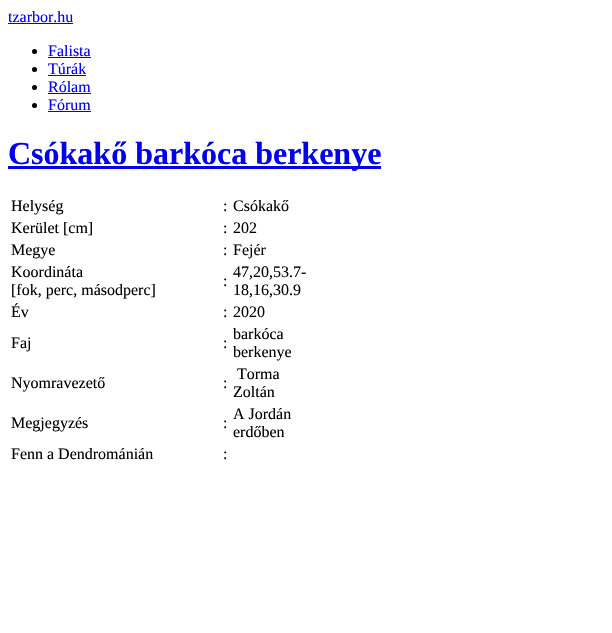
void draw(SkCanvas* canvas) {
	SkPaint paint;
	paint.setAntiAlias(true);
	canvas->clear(0xffffffff);
	SkFont f1(fontMgr->matchFamilyStyle("Liberation Serif", SkFontStyle::Normal()), 16);
	f1.setSubpixel(true);
	paint.setColor(0xff0000ee);
	canvas->drawString("tzarbor.hu", 8, 22, f1, paint);
	canvas->drawRect(SkRect::MakeXYWH(8, 23, 65, 1), paint);
	paint.setColor(0xff000000);
	canvas->drawCircle(34.5, 51.5, 2.5, paint);
	paint.setColor(0xff0000ee);
	canvas->drawString("Falista", 48, 56, f1, paint);
	canvas->drawRect(SkRect::MakeXYWH(48, 57, 43, 1), paint);
	paint.setColor(0xff000000);
	canvas->drawCircle(34.5, 69.5, 2.5, paint);
	paint.setColor(0xff0000ee);
	canvas->drawString("Túrák", 48, 74, f1, paint);
	canvas->drawRect(SkRect::MakeXYWH(48, 75, 38, 1), paint);
	paint.setColor(0xff000000);
	canvas->drawCircle(34.5, 87.5, 2.5, paint);
	paint.setColor(0xff0000ee);
	canvas->drawString("Rólam", 48, 92, f1, paint);
	canvas->drawRect(SkRect::MakeXYWH(48, 93, 43, 1), paint);
	paint.setColor(0xff000000);
	canvas->drawCircle(34.5, 105.5, 2.5, paint);
	paint.setColor(0xff0000ee);
	canvas->drawString("Fórum", 48, 110, f1, paint);
	canvas->drawRect(SkRect::MakeXYWH(48, 111, 43, 1), paint);
	canvas->drawRect(SkRect::MakeXYWH(8, 166, 373, 3), paint);
	SkFont f2(fontMgr->matchFamilyStyle("Liberation Serif", SkFontStyle::Bold()), 32);
	f2.setSubpixel(true);
	canvas->drawString("Csókakő barkóca berkenye", 8, 164, f2, paint);
	paint.setColor(0xff000000);
	canvas->drawString("Helység", 11, 211, f1, paint);
	canvas->drawString(":", 223, 211, f1, paint);
	canvas->drawString("Csókakő", 233, 211, f1, paint);
	canvas->drawString("Kerület [cm]", 11, 233, f1, paint);
	canvas->drawString(":", 223, 233, f1, paint);
	canvas->drawString("202", 233, 233, f1, paint);
	canvas->drawString("Megye", 11, 255, f1, paint);
	canvas->drawString(":", 223, 255, f1, paint);
	canvas->drawString("Fejér", 233, 255, f1, paint);
	canvas->drawString("Koordináta", 11, 277, f1, paint);
	canvas->drawString("[fok, perc, másodperc]", 11, 295, f1, paint);
	canvas->drawString(":", 223, 286, f1, paint);
	canvas->drawString("47,20,53.7-", 233, 277, f1, paint);
	canvas->drawString("18,16,30.9", 233, 295, f1, paint);
	canvas->drawString("Év", 11, 317, f1, paint);
	canvas->drawString(":", 223, 317, f1, paint);
	canvas->drawString("2020", 233, 317, f1, paint);
	canvas->drawString("Faj", 11, 348, f1, paint);
	canvas->drawString(":", 223, 348, f1, paint);
	canvas->drawString("barkóca", 233, 339, f1, paint);
	canvas->drawString("berkenye", 233, 357, f1, paint);
	canvas->drawString("Nyomravezető", 11, 388, f1, paint);
	canvas->drawString(":", 223, 388, f1, paint);
	canvas->drawString("Torma", 237, 379, f1, paint);
	canvas->drawString("Zoltán", 233, 397, f1, paint);
	canvas->drawString("Megjegyzés", 11, 428, f1, paint);
	canvas->drawString(":", 223, 428, f1, paint);
	canvas->drawString("A Jordán", 233, 419, f1, paint);
	canvas->drawString("erdőben", 233, 437, f1, paint);
	canvas->drawString("Fenn a Dendrománián", 11, 459, f1, paint);
	canvas->drawString(":", 223, 459, f1, paint);
}
